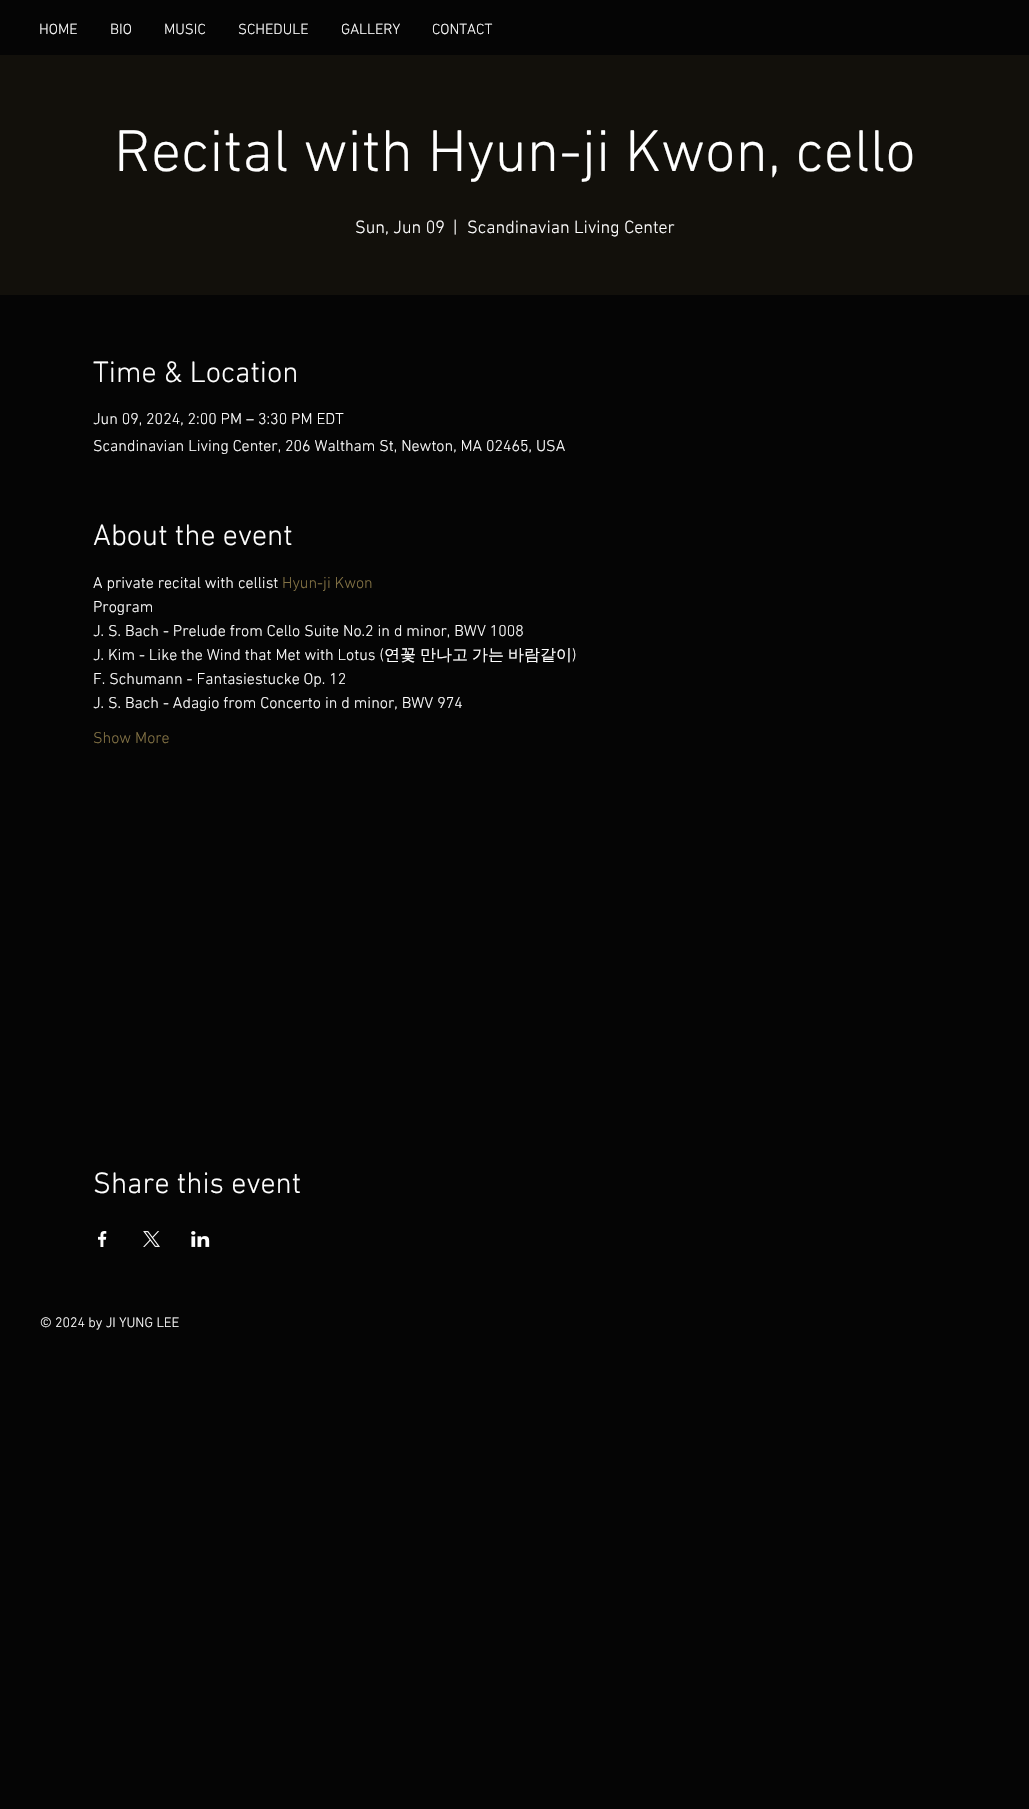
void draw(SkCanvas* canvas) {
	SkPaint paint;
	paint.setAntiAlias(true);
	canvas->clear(0xff050505);
	SkFont f1(fontMgr->matchFamilyStyle("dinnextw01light", SkFontStyle(300, SkFontStyle::kNormal_Width, SkFontStyle::kUpright_Slant)), 15);
	f1.setSubpixel(true);
	paint.setColor(0xffffffff);
	canvas->drawString("HOME", 39, 34, f1, paint);
	canvas->drawString("BIO", 110, 34, f1, paint);
	canvas->drawString("MUSIC", 164, 34, f1, paint);
	canvas->drawString("SCHEDULE", 238, 34, f1, paint);
	canvas->drawString("GALLERY", 341, 34, f1, paint);
	canvas->drawString("CONTACT", 432, 34, f1, paint);
	paint.setColor(0xff12100b);
	canvas->drawRect(SkRect::MakeXYWH(0, 55, 1029, 240), paint);
	SkFont f2(fontMgr->matchFamilyStyle("dinnextw01light", SkFontStyle(300, SkFontStyle::kNormal_Width, SkFontStyle::kUpright_Slant)), 60);
	f2.setSubpixel(true);
	paint.setColor(0xffffffff);
	canvas->drawString("Recital with Hyun-ji Kwon, cello", 114, 171, f2, paint);
	SkFont f3(fontMgr->matchFamilyStyle("dinnextw01light", SkFontStyle(300, SkFontStyle::kNormal_Width, SkFontStyle::kUpright_Slant)), 18);
	f3.setSubpixel(true);
	canvas->drawString("Sun, Jun 09", 355, 233, f3, paint);
	canvas->drawString("|", 453, 233, f3, paint);
	canvas->drawString("Scandinavian Living Center", 467, 233, f3, paint);
	SkFont f4(fontMgr->matchFamilyStyle("dinnextw01light", SkFontStyle(300, SkFontStyle::kNormal_Width, SkFontStyle::kUpright_Slant)), 30);
	f4.setSubpixel(true);
	canvas->drawString("Time & Location", 93, 382, f4, paint);
	SkFont f5(fontMgr->matchFamilyStyle("dinnextw01light", SkFontStyle(300, SkFontStyle::kNormal_Width, SkFontStyle::kUpright_Slant)), 16);
	f5.setSubpixel(true);
	canvas->drawString("Jun 09, 2024, 2:00 PM – 3:30 PM EDT", 93, 424, f5, paint);
	canvas->drawString("Scandinavian Living Center, 206 Waltham St, Newton, MA 02465, USA", 93, 451, f5, paint);
	canvas->drawString("About the event", 93, 545, f4, paint);
	canvas->drawString("A private recital with cellist", 93, 588, f5, paint);
	paint.setColor(0xff837244);
	canvas->drawString("Hyun-ji Kwon", 282, 588, f5, paint);
	paint.setColor(0xffffffff);
	canvas->drawString("Program", 93, 612, f5, paint);
	canvas->drawString("J. S. Bach - Prelude from Cello Suite No.2 in d minor, BWV 1008", 93, 636, f5, paint);
	canvas->drawString("J. Kim - Like the Wind that Met with Lotus (", 93, 660, f5, paint);
	SkFont f6(fontMgr->matchFamilyStyle("WenQuanYi Zen Hei", SkFontStyle(500, SkFontStyle::kNormal_Width, SkFontStyle::kUpright_Slant)), 16);
	f6.setSubpixel(true);
	canvas->drawString("연꽃", 384, 660, f6, paint);
	canvas->drawString("만나고", 420, 660, f6, paint);
	canvas->drawString("가는", 472, 660, f6, paint);
	canvas->drawString("바람같이", 508, 660, f6, paint);
	canvas->drawString(")", 572, 660, f5, paint);
	canvas->drawString("F. Schumann - Fantasiestucke Op. 12", 93, 684, f5, paint);
	canvas->drawString("J. S. Bach - Adagio from Concerto in d minor, BWV 974", 93, 708, f5, paint);
	paint.setColor(0xff837244);
	canvas->drawString("Show More", 93, 743, f5, paint);
	paint.setColor(0xffffffff);
	canvas->drawString("Share this event", 93, 1193, f4, paint);
	canvas->drawImageRect(SkImages::DeferredFromEncodedData(SkData::MakeFromFileName("img1.png")), SkRect::MakeXYWH(98, 1231, 9, 16), SkSamplingOptions());
	canvas->drawImageRect(SkImages::DeferredFromEncodedData(SkData::MakeFromFileName("img2.png")), SkRect::MakeXYWH(143, 1231, 17, 16), SkSamplingOptions());
	canvas->drawImageRect(SkImages::DeferredFromEncodedData(SkData::MakeFromFileName("img3.png")), SkRect::MakeXYWH(191, 1231, 19, 16), SkSamplingOptions());
	SkFont f7(fontMgr->matchFamilyStyle("dinnextw01light", SkFontStyle(300, SkFontStyle::kNormal_Width, SkFontStyle::kUpright_Slant)), 14);
	f7.setSubpixel(true);
	canvas->drawString("© 2024 by JI YUNG LEE", 40, 1327, f7, paint);
}
